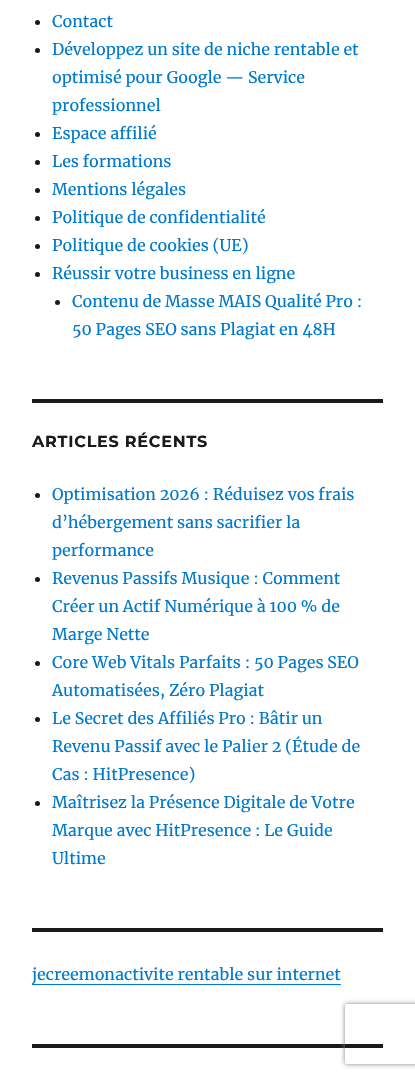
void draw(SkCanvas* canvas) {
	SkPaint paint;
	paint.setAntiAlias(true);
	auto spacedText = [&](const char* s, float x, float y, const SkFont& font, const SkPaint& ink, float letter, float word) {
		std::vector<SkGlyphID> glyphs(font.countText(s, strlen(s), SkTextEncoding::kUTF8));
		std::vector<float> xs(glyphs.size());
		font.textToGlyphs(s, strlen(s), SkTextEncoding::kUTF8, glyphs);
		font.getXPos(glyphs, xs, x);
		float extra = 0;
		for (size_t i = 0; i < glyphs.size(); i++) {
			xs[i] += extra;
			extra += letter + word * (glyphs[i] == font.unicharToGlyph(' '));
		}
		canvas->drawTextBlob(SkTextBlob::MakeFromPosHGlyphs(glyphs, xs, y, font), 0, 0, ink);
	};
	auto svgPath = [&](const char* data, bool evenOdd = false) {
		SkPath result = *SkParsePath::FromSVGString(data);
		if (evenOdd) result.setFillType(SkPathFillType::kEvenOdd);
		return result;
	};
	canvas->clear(0xffffffff);
	paint.setColor(0xff1a1a1a);
	canvas->drawCircle(37.5, 22.5, 2.5, paint);
	SkFont f1(fontMgr->matchFamilyStyle("Merriweather", SkFontStyle::Normal()), 16);
	f1.setSubpixel(true);
	paint.setColor(0xff007acc);
	canvas->drawString("Contact", 52, 27, f1, paint);
	paint.setColor(0xff1a1a1a);
	canvas->drawCircle(37.5, 50.5, 2.5, paint);
	paint.setColor(0xff007acc);
	canvas->drawString("Développez un site de niche rentable et", 52, 55, f1, paint);
	canvas->drawString("optimisé pour Google — Service", 52, 83, f1, paint);
	canvas->drawString("professionnel", 52, 111, f1, paint);
	paint.setColor(0xff1a1a1a);
	canvas->drawCircle(37.5, 134.5, 2.5, paint);
	paint.setColor(0xff007acc);
	canvas->drawString("Espace affilié", 52, 139, f1, paint);
	paint.setColor(0xff1a1a1a);
	canvas->drawCircle(37.5, 162.5, 2.5, paint);
	paint.setColor(0xff007acc);
	canvas->drawString("Les formations", 52, 167, f1, paint);
	paint.setColor(0xff1a1a1a);
	canvas->drawCircle(37.5, 190.5, 2.5, paint);
	paint.setColor(0xff007acc);
	canvas->drawString("Mentions légales", 52, 195, f1, paint);
	paint.setColor(0xff1a1a1a);
	canvas->drawCircle(37.5, 218.5, 2.5, paint);
	paint.setColor(0xff007acc);
	canvas->drawString("Politique de confidentialité", 52, 223, f1, paint);
	paint.setColor(0xff1a1a1a);
	canvas->drawCircle(37.5, 246.5, 2.5, paint);
	paint.setColor(0xff007acc);
	canvas->drawString("Politique de cookies (UE)", 52, 251, f1, paint);
	paint.setColor(0xff1a1a1a);
	canvas->drawCircle(37.5, 274.5, 2.5, paint);
	paint.setColor(0xff007acc);
	canvas->drawString("Réussir votre business en ligne", 52, 279, f1, paint);
	paint.setColor(0xff1a1a1a);
	canvas->drawCircle(57.5, 302.5, 2.5, paint);
	paint.setColor(0xff007acc);
	canvas->drawString("Contenu de Masse MAIS Qualité Pro :", 72, 307, f1, paint);
	canvas->drawString("50 Pages SEO sans Plagiat en 48H", 72, 335, f1, paint);
	paint.setColor(0xff1a1a1a);
	canvas->drawRect(SkRect::MakeXYWH(32, 399, 351, 4), paint);
	SkFont f2(fontMgr->matchFamilyStyle("Montserrat", SkFontStyle(100, SkFontStyle::kNormal_Width, SkFontStyle::kUpright_Slant)), 16);
	f2.setSubpixel(true);
	spacedText("ARTICLES RÉCENTS", 32, 447, f2, paint, 0.75, 0);
	canvas->drawCircle(37.5, 495.5, 2.5, paint);
	paint.setColor(0xff007acc);
	canvas->drawString("Optimisation 2026 : Réduisez vos frais", 52, 500, f1, paint);
	canvas->drawString("d’hébergement sans sacrifier la", 52, 528, f1, paint);
	canvas->drawString("performance", 52, 556, f1, paint);
	paint.setColor(0xff1a1a1a);
	canvas->drawCircle(37.5, 579.5, 2.5, paint);
	paint.setColor(0xff007acc);
	canvas->drawString("Revenus Passifs Musique : Comment", 52, 584, f1, paint);
	canvas->drawString("Créer un Actif Numérique à 100 % de", 52, 612, f1, paint);
	canvas->drawString("Marge Nette", 52, 640, f1, paint);
	paint.setColor(0xff1a1a1a);
	canvas->drawCircle(37.5, 663.5, 2.5, paint);
	paint.setColor(0xff007acc);
	canvas->drawString("Core Web Vitals Parfaits : 50 Pages SEO", 52, 668, f1, paint);
	canvas->drawString("Automatisées, Zéro Plagiat", 52, 696, f1, paint);
	paint.setColor(0xff1a1a1a);
	canvas->drawCircle(37.5, 719.5, 2.5, paint);
	paint.setColor(0xff007acc);
	canvas->drawString("Le Secret des Affiliés Pro : Bâtir un", 52, 724, f1, paint);
	canvas->drawString("Revenu Passif avec le Palier 2 (Étude de", 52, 752, f1, paint);
	canvas->drawString("Cas : HitPresence)", 52, 780, f1, paint);
	paint.setColor(0xff1a1a1a);
	canvas->drawCircle(37.5, 803.5, 2.5, paint);
	paint.setColor(0xff007acc);
	canvas->drawString("Maîtrisez la Présence Digitale de Votre", 52, 808, f1, paint);
	canvas->drawString("Marque avec HitPresence : Le Guide", 52, 836, f1, paint);
	canvas->drawString("Ultime", 52, 864, f1, paint);
	paint.setColor(0xff1a1a1a);
	canvas->drawRect(SkRect::MakeXYWH(32, 928, 351, 4), paint);
	paint.setColor(0xff007acc);
	canvas->drawString("jecreemonactivite rentable sur internet", 32, 980, f1, paint);
	canvas->drawRect(SkRect::MakeXYWH(32, 984, 309, 1), paint);
	paint.setColor(0xff1a1a1a);
	canvas->drawRect(SkRect::MakeXYWH(32, 1044, 351, 4), paint);
	canvas->save();
	canvas->clipPath(svgPath("M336 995H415V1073H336ZM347 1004H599C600 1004 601 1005 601 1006V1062C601 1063 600 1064 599 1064H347C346 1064 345 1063 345 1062V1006C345 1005 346 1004 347 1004Z", true), true);
	paint.setColor(0xff808080);
	paint.setMaskFilter(SkMaskFilter::MakeBlur(kNormal_SkBlurStyle, 2.5));
	canvas->drawRoundRect(SkRect::MakeXYWH(345, 1004, 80, 60), 2, 2, paint);
	paint.setMaskFilter(nullptr);
	canvas->restore();
}
